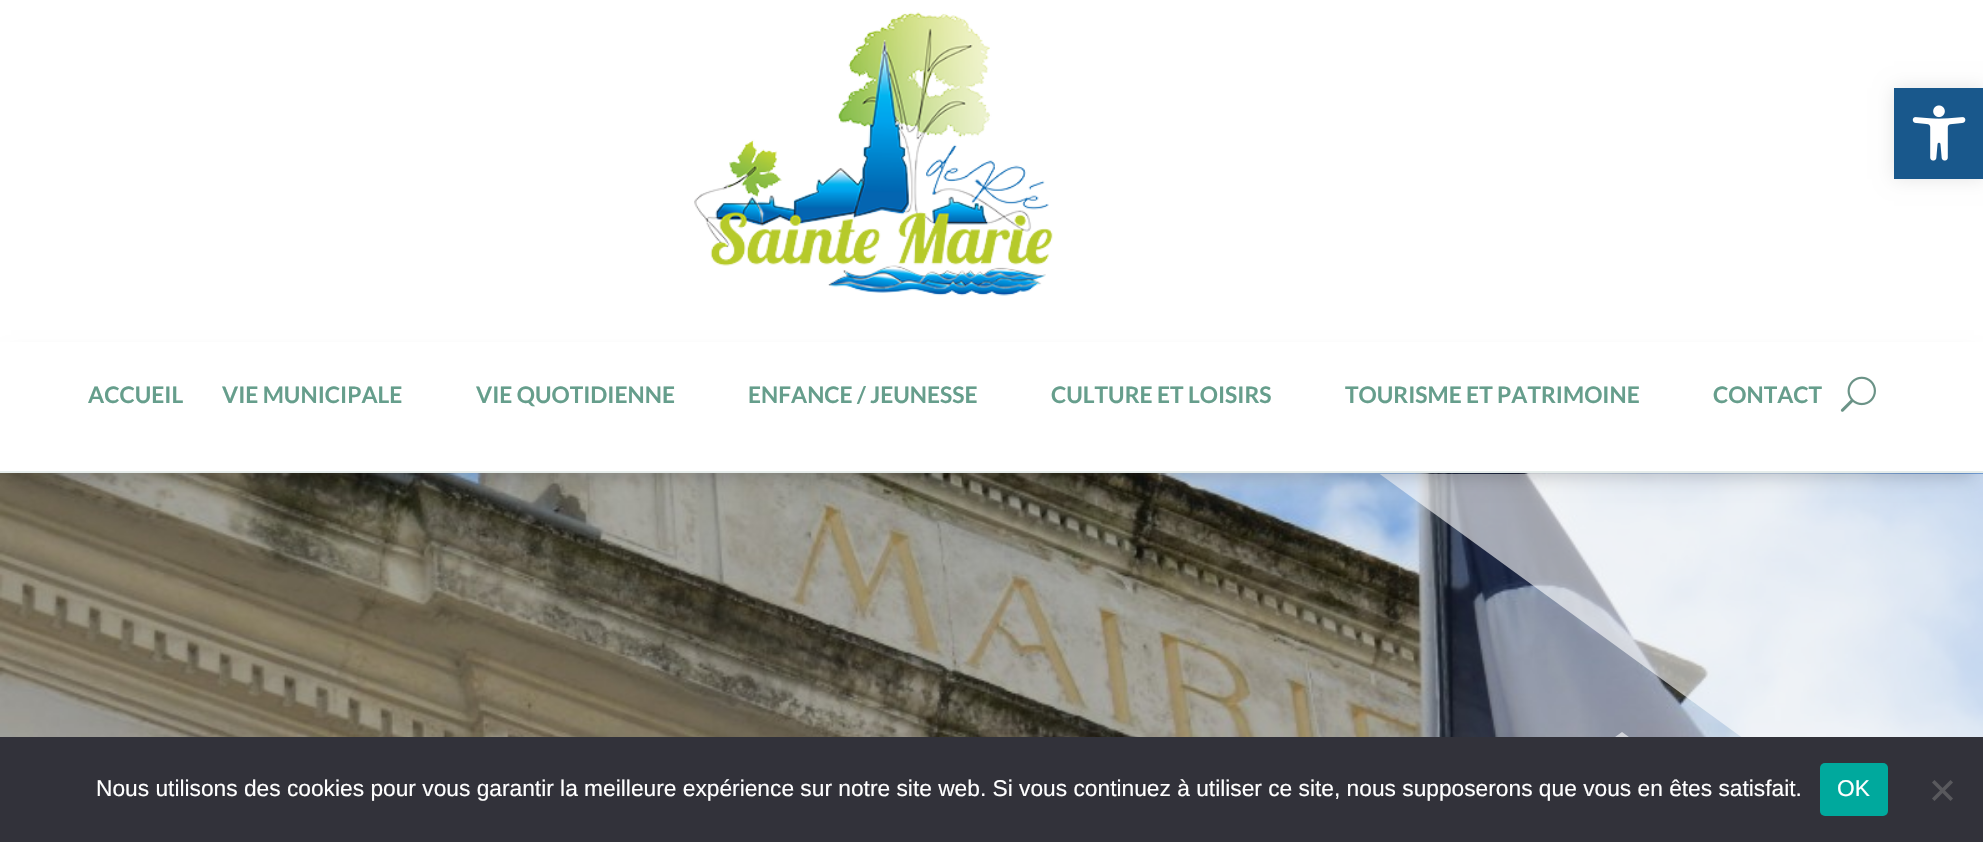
void draw(SkCanvas* canvas) {
	SkPaint paint;
	paint.setAntiAlias(true);
	auto svgPath = [&](const char* data, bool evenOdd = false) {
		SkPath result = *SkParsePath::FromSVGString(data);
		if (evenOdd) result.setFillType(SkPathFillType::kEvenOdd);
		return result;
	};
	canvas->clear(0xffffffff);
	paint.setColor(0x1a000000);
	paint.setMaskFilter(SkMaskFilter::MakeBlur(kNormal_SkBlurStyle, 9));
	canvas->drawRect(SkRect::MakeXYWH(1894, 88, 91, 91), paint);
	paint.setMaskFilter(nullptr);
	paint.setColor(0xff19588c);
	canvas->drawRect(SkRect::MakeXYWH(1894, 88, 89, 91), paint);
	canvas->drawImageRect(SkImages::DeferredFromEncodedData(SkData::MakeFromFileName("img1.png")), SkRect::MakeXYWH(1912, 105, 54, 56), SkSamplingOptions());
	canvas->drawImageRect(SkImages::DeferredFromEncodedData(SkData::MakeFromFileName("img2.png")), SkRect::MakeXYWH(694, 12, 359, 284), SkSamplingOptions());
	canvas->drawImageRect(SkImages::DeferredFromEncodedData(SkData::MakeFromFileName("img4.png")), SkRect::MakeXYWH(0, 473, 1983, 264), SkSamplingOptions());
	canvas->drawImageRect(SkImages::DeferredFromEncodedData(SkData::MakeFromFileName("img5.png")), SkRect::MakeXYWH(0, 474, 1752, 263), SkSamplingOptions());
	canvas->save();
	canvas->clipRect(SkRect::MakeXYWH(0, 474, 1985, 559));
	paint.setColor(0x99ffffff);
	canvas->drawPath(svgPath("M1622 732L1204 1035H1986V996ZM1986 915L1377 472H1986Z"), paint);
	canvas->restore();
	paint.setColor(0x33000000);
	paint.setMaskFilter(SkMaskFilter::MakeBlur(kNormal_SkBlurStyle, 9));
	canvas->drawRect(SkRect::MakeXYWH(11, 357, 1963, 119), paint);
	paint.setMaskFilter(nullptr);
	paint.setColor(0xffffffff);
	canvas->drawRect(SkRect::MakeXYWH(0, 342, 1983, 129), paint);
	paint.setColor(0xffe6edeb);
	canvas->drawRect(SkRect::MakeXYWH(0, 471, 1983, 2), paint);
	SkFont f1(fontMgr->matchFamilyStyle("Lato", SkFontStyle::Bold()), 22.75);
	f1.setSubpixel(true);
	paint.setColor(0xff669e8c);
	canvas->drawString("ACCUEIL", 88, 403, f1, paint);
	canvas->drawString("VIE MUNICIPALE", 222, 403, f1, paint);
	canvas->drawString("VIE QUOTIDIENNE", 476, 403, f1, paint);
	canvas->drawString("ENFANCE / JEUNESSE", 748, 403, f1, paint);
	canvas->drawString("CULTURE ET LOISIRS", 1051, 403, f1, paint);
	canvas->drawString("TOURISME ET PATRIMOINE", 1345, 403, f1, paint);
	canvas->drawString("CONTACT", 1713, 403, f1, paint);
	canvas->drawImageRect(SkImages::DeferredFromEncodedData(SkData::MakeFromFileName("img3.png")), SkRect::MakeXYWH(1840, 376, 36, 36), SkSamplingOptions());
	paint.setColor(0xff32323a);
	canvas->drawRect(SkRect::MakeXYWH(0, 737, 1983, 105), paint);
	SkFont f2(fontMgr->matchFamilyStyle("Liberation Sans", SkFontStyle::Normal()), 22.75);
	f2.setSubpixel(true);
	paint.setColor(0xffffffff);
	canvas->drawString("Nous utilisons des cookies pour vous garantir la meilleure expérience sur notre site web. Si vous continuez à utiliser ce site, nous supposerons que vous en êtes satisfait.", 96, 796, f2, paint);
	paint.setColor(0xff00a99d);
	canvas->drawRoundRect(SkRect::MakeXYWH(1820, 763, 68, 53), 5, 5, paint);
	paint.setColor(0xffffffff);
	canvas->drawString("OK", 1837, 796, f2, paint);
	paint.setColor(0xff59595d);
	canvas->drawPath(svgPath("M1950.5 780L1953 782.5L1934.5 801L1932 798.5Z"), paint);
	canvas->drawPath(svgPath("M1932 782.5L1934.5 780L1953 798.5L1950.5 801Z"), paint);
}
